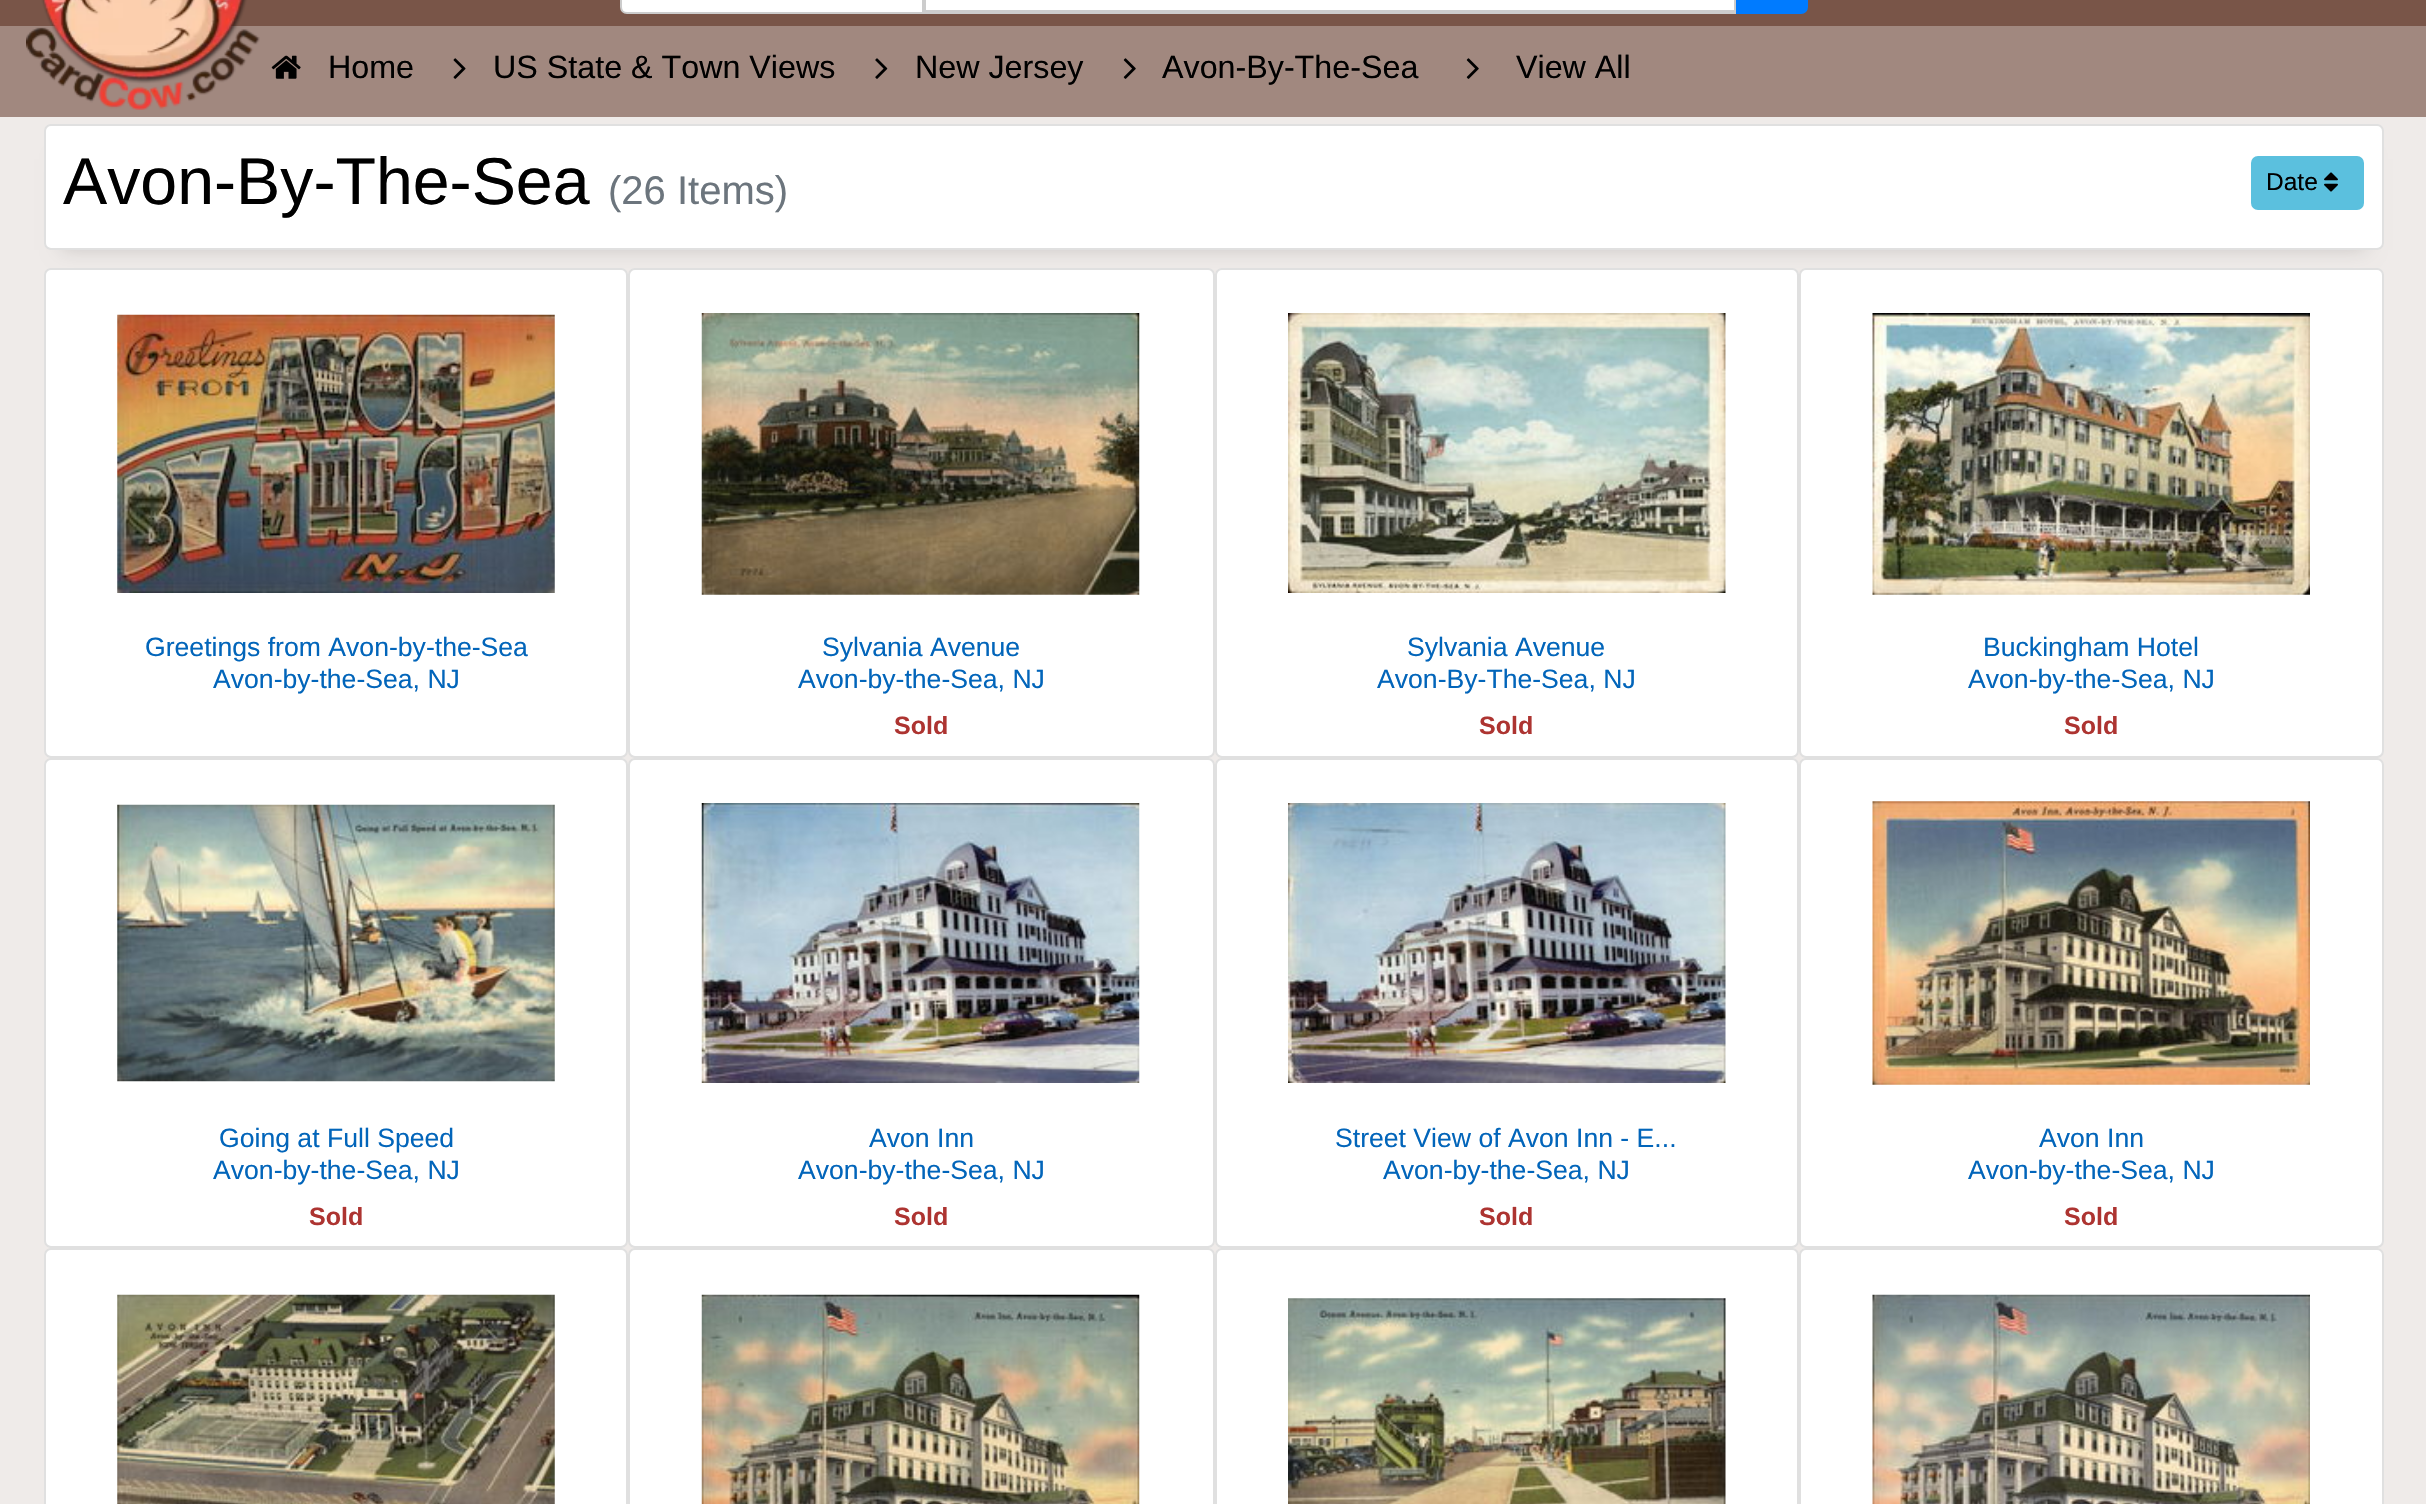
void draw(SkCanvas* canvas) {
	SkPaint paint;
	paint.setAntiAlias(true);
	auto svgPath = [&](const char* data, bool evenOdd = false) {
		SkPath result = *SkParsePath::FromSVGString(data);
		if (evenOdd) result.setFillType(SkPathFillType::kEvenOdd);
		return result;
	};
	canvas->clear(0xffa1887f);
	paint.setColor(0xff795548);
	canvas->drawRect(SkRect::MakeXYWH(0, 0, 2426, 26), paint);
	canvas->drawImageRect(SkImages::DeferredFromEncodedData(SkData::MakeFromFileName("img1.png")), SkRect::MakeXYWH(26, 0, 234, 110), SkSamplingOptions());
	paint.setColor(0xffffffff);
	canvas->drawRect(SkRect::MakeXYWH(924, -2, 812, 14), paint);
	paint.setStroke(true);
	paint.setStrokeWidth(4);
	paint.setColor(0xffcccccc);
	canvas->drawRect(SkRect::MakeXYWH(924, -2, 812, 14), paint);
	paint.setStroke(false);
	paint.setColor(0xffffffff);
	canvas->drawPath(svgPath("M627-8H923V13H627C623.5 13 621 10.5 621 7V-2C621-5.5 623.5-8 627-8Z"), paint);
	paint.setStroke(true);
	paint.setStrokeWidth(2);
	paint.setColor(0xffcccccc);
	canvas->drawPath(svgPath("M627-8H923V13H627C623.5 13 621 10.5 621 7V-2C621-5.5 623.5-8 627-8Z"), paint);
	paint.setStroke(false);
	paint.setColor(0xff007bff);
	canvas->drawPath(svgPath("M1737-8H1801C1804.5-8 1807-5.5 1807-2V7C1807 10.5 1804.5 13 1801 13H1737Z"), paint);
	paint.setStroke(true);
	canvas->drawPath(svgPath("M1737-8H1801C1804.5-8 1807-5.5 1807-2V7C1807 10.5 1804.5 13 1801 13H1737Z"), paint);
	canvas->drawImageRect(SkImages::DeferredFromEncodedData(SkData::MakeFromFileName("img2.png")), SkRect::MakeXYWH(271, 55, 30, 24), SkSamplingOptions());
	SkFont f1(fontMgr->matchFamilyStyle("Liberation Sans", SkFontStyle::Normal()), 32.25);
	f1.setSubpixel(true);
	paint.setStroke(false);
	paint.setColor(0xff000000);
	canvas->drawString("Home", 328, 78, f1, paint);
	canvas->drawImageRect(SkImages::DeferredFromEncodedData(SkData::MakeFromFileName("img3.png")), SkRect::MakeXYWH(453, 58, 13, 21), SkSamplingOptions());
	canvas->drawString("US State & Town Views", 493, 78, f1, paint);
	canvas->drawImageRect(SkImages::DeferredFromEncodedData(SkData::MakeFromFileName("img4.png")), SkRect::MakeXYWH(875, 58, 13, 21), SkSamplingOptions());
	canvas->drawString("New Jersey", 915, 78, f1, paint);
	canvas->drawImageRect(SkImages::DeferredFromEncodedData(SkData::MakeFromFileName("img5.png")), SkRect::MakeXYWH(1123, 58, 13, 21), SkSamplingOptions());
	canvas->drawString("Avon-By-The-Sea", 1162, 78, f1, paint);
	canvas->drawImageRect(SkImages::DeferredFromEncodedData(SkData::MakeFromFileName("img5.png")), SkRect::MakeXYWH(1466, 58, 13, 21), SkSamplingOptions());
	canvas->drawString("View All", 1516, 78, f1, paint);
	paint.setColor(0xffefebe9);
	canvas->drawRect(SkRect::MakeXYWH(0, 117, 2426, 1387), paint);
	paint.setColor(0x26000000);
	paint.setMaskFilter(SkMaskFilter::MakeBlur(kNormal_SkBlurStyle, 9));
	canvas->drawRect(SkRect::MakeXYWH(61, 159, 2305, 91), paint);
	paint.setMaskFilter(nullptr);
	paint.setColor(0xffffffff);
	canvas->drawRoundRect(SkRect::MakeXYWH(44, 124, 2340, 126), 7, 7, paint);
	paint.setStroke(true);
	paint.setColor(0x1f000000);
	canvas->drawRoundRect(SkRect::MakeXYWH(45, 125, 2338, 124), 6, 6, paint);
	SkFont f2(fontMgr->matchFamilyStyle("Liberation Sans", SkFontStyle::Normal()), 66.25);
	f2.setSubpixel(true);
	paint.setStroke(false);
	paint.setColor(0xff000000);
	canvas->drawString("Avon-By-The-Sea", 63, 204, f2, paint);
	SkFont f3(fontMgr->matchFamilyStyle("Liberation Sans", SkFontStyle::Normal()), 40);
	f3.setSubpixel(true);
	paint.setColor(0xff6c757d);
	canvas->drawString("(26 Items)", 608, 204, f3, paint);
	paint.setColor(0xff5bc0de);
	canvas->drawRoundRect(SkRect::MakeXYWH(2252, 157, 111, 52), 6, 6, paint);
	paint.setStroke(true);
	canvas->drawRoundRect(SkRect::MakeXYWH(2252, 157, 111, 52), 6, 6, paint);
	SkFont f4(fontMgr->matchFamilyStyle("Liberation Sans", SkFontStyle::Normal()), 24.5);
	f4.setSubpixel(true);
	paint.setStroke(false);
	paint.setColor(0xff000000);
	canvas->drawString("Date", 2266, 190, f4, paint);
	canvas->drawImageRect(SkImages::DeferredFromEncodedData(SkData::MakeFromFileName("img6.png")), SkRect::MakeXYWH(2324, 172, 14, 20), SkSamplingOptions());
	paint.setColor(0xffffffff);
	canvas->drawRoundRect(SkRect::MakeXYWH(44, 268, 584, 490), 7, 7, paint);
	paint.setStroke(true);
	paint.setColor(0x1f000000);
	canvas->drawRoundRect(SkRect::MakeXYWH(45, 269, 582, 488), 6, 6, paint);
	canvas->drawImageRect(SkImages::DeferredFromEncodedData(SkData::MakeFromFileName("img7.png")), SkRect::MakeXYWH(117, 314, 438, 279), SkSamplingOptions());
	SkFont f5(fontMgr->matchFamilyStyle("Liberation Sans", SkFontStyle::Normal()), 26.6);
	f5.setSubpixel(true);
	paint.setStroke(false);
	paint.setColor(0xff0265ba);
	canvas->drawString("Greetings from Avon-by-the-Sea", 145, 656, f5, paint);
	canvas->drawString("Avon-by-the-Sea, NJ", 213, 688, f5, paint);
	paint.setColor(0xffffffff);
	canvas->drawRoundRect(SkRect::MakeXYWH(628, 268, 587, 490), 7, 7, paint);
	paint.setStroke(true);
	paint.setColor(0x1f000000);
	canvas->drawRoundRect(SkRect::MakeXYWH(629, 269, 585, 488), 6, 6, paint);
	canvas->drawImageRect(SkImages::DeferredFromEncodedData(SkData::MakeFromFileName("img8.png")), SkRect::MakeXYWH(701, 313, 439, 282), SkSamplingOptions());
	paint.setStroke(false);
	paint.setColor(0xff0265ba);
	canvas->drawString("Sylvania Avenue", 822, 656, f5, paint);
	canvas->drawString("Avon-by-the-Sea, NJ", 798, 688, f5, paint);
	SkFont f6(fontMgr->matchFamilyStyle("Liberation Sans", SkFontStyle::Bold()), 25);
	f6.setSubpixel(true);
	paint.setColor(0xffad3431);
	canvas->drawString("Sold", 894, 734, f6, paint);
	paint.setColor(0xffffffff);
	canvas->drawRoundRect(SkRect::MakeXYWH(1215, 268, 584, 490), 7, 7, paint);
	paint.setStroke(true);
	paint.setColor(0x1f000000);
	canvas->drawRoundRect(SkRect::MakeXYWH(1216, 269, 582, 488), 6, 6, paint);
	canvas->drawImageRect(SkImages::DeferredFromEncodedData(SkData::MakeFromFileName("img9.png")), SkRect::MakeXYWH(1288, 313, 438, 280), SkSamplingOptions());
	paint.setStroke(false);
	paint.setColor(0xff0265ba);
	canvas->drawString("Sylvania Avenue", 1407, 656, f5, paint);
	canvas->drawString("Avon-By-The-Sea, NJ", 1377, 688, f5, paint);
	paint.setColor(0xffad3431);
	canvas->drawString("Sold", 1479, 734, f6, paint);
	paint.setColor(0xffffffff);
	canvas->drawRoundRect(SkRect::MakeXYWH(1799, 268, 585, 490), 7, 7, paint);
	paint.setStroke(true);
	paint.setColor(0x1f000000);
	canvas->drawRoundRect(SkRect::MakeXYWH(1800, 269, 583, 488), 6, 6, paint);
	canvas->drawImageRect(SkImages::DeferredFromEncodedData(SkData::MakeFromFileName("img10.png")), SkRect::MakeXYWH(1872, 313, 438, 282), SkSamplingOptions());
	paint.setStroke(false);
	paint.setColor(0xff0265ba);
	canvas->drawString("Buckingham Hotel", 1983, 656, f5, paint);
	canvas->drawString("Avon-by-the-Sea, NJ", 1968, 688, f5, paint);
	paint.setColor(0xffad3431);
	canvas->drawString("Sold", 2064, 734, f6, paint);
	paint.setColor(0xffffffff);
	canvas->drawRoundRect(SkRect::MakeXYWH(44, 758, 584, 490), 7, 7, paint);
	paint.setStroke(true);
	paint.setColor(0x1f000000);
	canvas->drawRoundRect(SkRect::MakeXYWH(45, 759, 582, 488), 6, 6, paint);
	canvas->drawImageRect(SkImages::DeferredFromEncodedData(SkData::MakeFromFileName("img11.png")), SkRect::MakeXYWH(117, 804, 438, 278), SkSamplingOptions());
	paint.setStroke(false);
	paint.setColor(0xff0265ba);
	canvas->drawString("Going at Full Speed", 219, 1147, f5, paint);
	canvas->drawString("Avon-by-the-Sea, NJ", 213, 1179, f5, paint);
	paint.setColor(0xffad3431);
	canvas->drawString("Sold", 309, 1225, f6, paint);
	paint.setColor(0xffffffff);
	canvas->drawRoundRect(SkRect::MakeXYWH(628, 758, 587, 490), 7, 7, paint);
	paint.setStroke(true);
	paint.setColor(0x1f000000);
	canvas->drawRoundRect(SkRect::MakeXYWH(629, 759, 585, 488), 6, 6, paint);
	canvas->drawImageRect(SkImages::DeferredFromEncodedData(SkData::MakeFromFileName("img12.png")), SkRect::MakeXYWH(701, 803, 439, 280), SkSamplingOptions());
	paint.setStroke(false);
	paint.setColor(0xff0265ba);
	canvas->drawString("Avon Inn", 869, 1147, f5, paint);
	canvas->drawString("Avon-by-the-Sea, NJ", 798, 1179, f5, paint);
	paint.setColor(0xffad3431);
	canvas->drawString("Sold", 894, 1225, f6, paint);
	paint.setColor(0xffffffff);
	canvas->drawRoundRect(SkRect::MakeXYWH(1215, 758, 584, 490), 7, 7, paint);
	paint.setStroke(true);
	paint.setColor(0x1f000000);
	canvas->drawRoundRect(SkRect::MakeXYWH(1216, 759, 582, 488), 6, 6, paint);
	canvas->drawImageRect(SkImages::DeferredFromEncodedData(SkData::MakeFromFileName("img13.png")), SkRect::MakeXYWH(1288, 803, 438, 280), SkSamplingOptions());
	paint.setStroke(false);
	paint.setColor(0xff0265ba);
	canvas->drawString("Street View of Avon Inn - E...", 1335, 1147, f5, paint);
	canvas->drawString("Avon-by-the-Sea, NJ", 1383, 1179, f5, paint);
	paint.setColor(0xffad3431);
	canvas->drawString("Sold", 1479, 1225, f6, paint);
	paint.setColor(0xffffffff);
	canvas->drawRoundRect(SkRect::MakeXYWH(1799, 758, 585, 490), 7, 7, paint);
	paint.setStroke(true);
	paint.setColor(0x1f000000);
	canvas->drawRoundRect(SkRect::MakeXYWH(1800, 759, 583, 488), 6, 6, paint);
	canvas->drawImageRect(SkImages::DeferredFromEncodedData(SkData::MakeFromFileName("img14.png")), SkRect::MakeXYWH(1872, 801, 438, 284), SkSamplingOptions());
	paint.setStroke(false);
	paint.setColor(0xff0265ba);
	canvas->drawString("Avon Inn", 2039, 1147, f5, paint);
	canvas->drawString("Avon-by-the-Sea, NJ", 1968, 1179, f5, paint);
	paint.setColor(0xffad3431);
	canvas->drawString("Sold", 2064, 1225, f6, paint);
	paint.setColor(0xffffffff);
	canvas->drawRoundRect(SkRect::MakeXYWH(44, 1248, 584, 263), 7, 7, paint);
	paint.setStroke(true);
	paint.setColor(0x1f000000);
	canvas->drawRoundRect(SkRect::MakeXYWH(45, 1249, 582, 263), 6, 6, paint);
	canvas->drawImageRect(SkImages::DeferredFromEncodedData(SkData::MakeFromFileName("img15.png")), SkRect::MakeXYWH(117, 1294, 438, 210), SkSamplingOptions());
	paint.setStroke(false);
	paint.setColor(0xffffffff);
	canvas->drawRoundRect(SkRect::MakeXYWH(628, 1248, 587, 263), 7, 7, paint);
	paint.setStroke(true);
	paint.setColor(0x1f000000);
	canvas->drawRoundRect(SkRect::MakeXYWH(629, 1249, 585, 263), 6, 6, paint);
	canvas->drawImageRect(SkImages::DeferredFromEncodedData(SkData::MakeFromFileName("img16.png")), SkRect::MakeXYWH(701, 1294, 439, 210), SkSamplingOptions());
	paint.setStroke(false);
	paint.setColor(0xffffffff);
	canvas->drawRoundRect(SkRect::MakeXYWH(1215, 1248, 584, 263), 7, 7, paint);
	paint.setStroke(true);
	paint.setColor(0x1f000000);
	canvas->drawRoundRect(SkRect::MakeXYWH(1216, 1249, 582, 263), 6, 6, paint);
	canvas->drawImageRect(SkImages::DeferredFromEncodedData(SkData::MakeFromFileName("img17.png")), SkRect::MakeXYWH(1288, 1298, 438, 206), SkSamplingOptions());
	paint.setStroke(false);
	paint.setColor(0xffffffff);
	canvas->drawRoundRect(SkRect::MakeXYWH(1799, 1248, 585, 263), 7, 7, paint);
	paint.setStroke(true);
	paint.setColor(0x1f000000);
	canvas->drawRoundRect(SkRect::MakeXYWH(1800, 1249, 583, 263), 6, 6, paint);
	canvas->drawImageRect(SkImages::DeferredFromEncodedData(SkData::MakeFromFileName("img18.png")), SkRect::MakeXYWH(1872, 1294, 438, 210), SkSamplingOptions());
}
